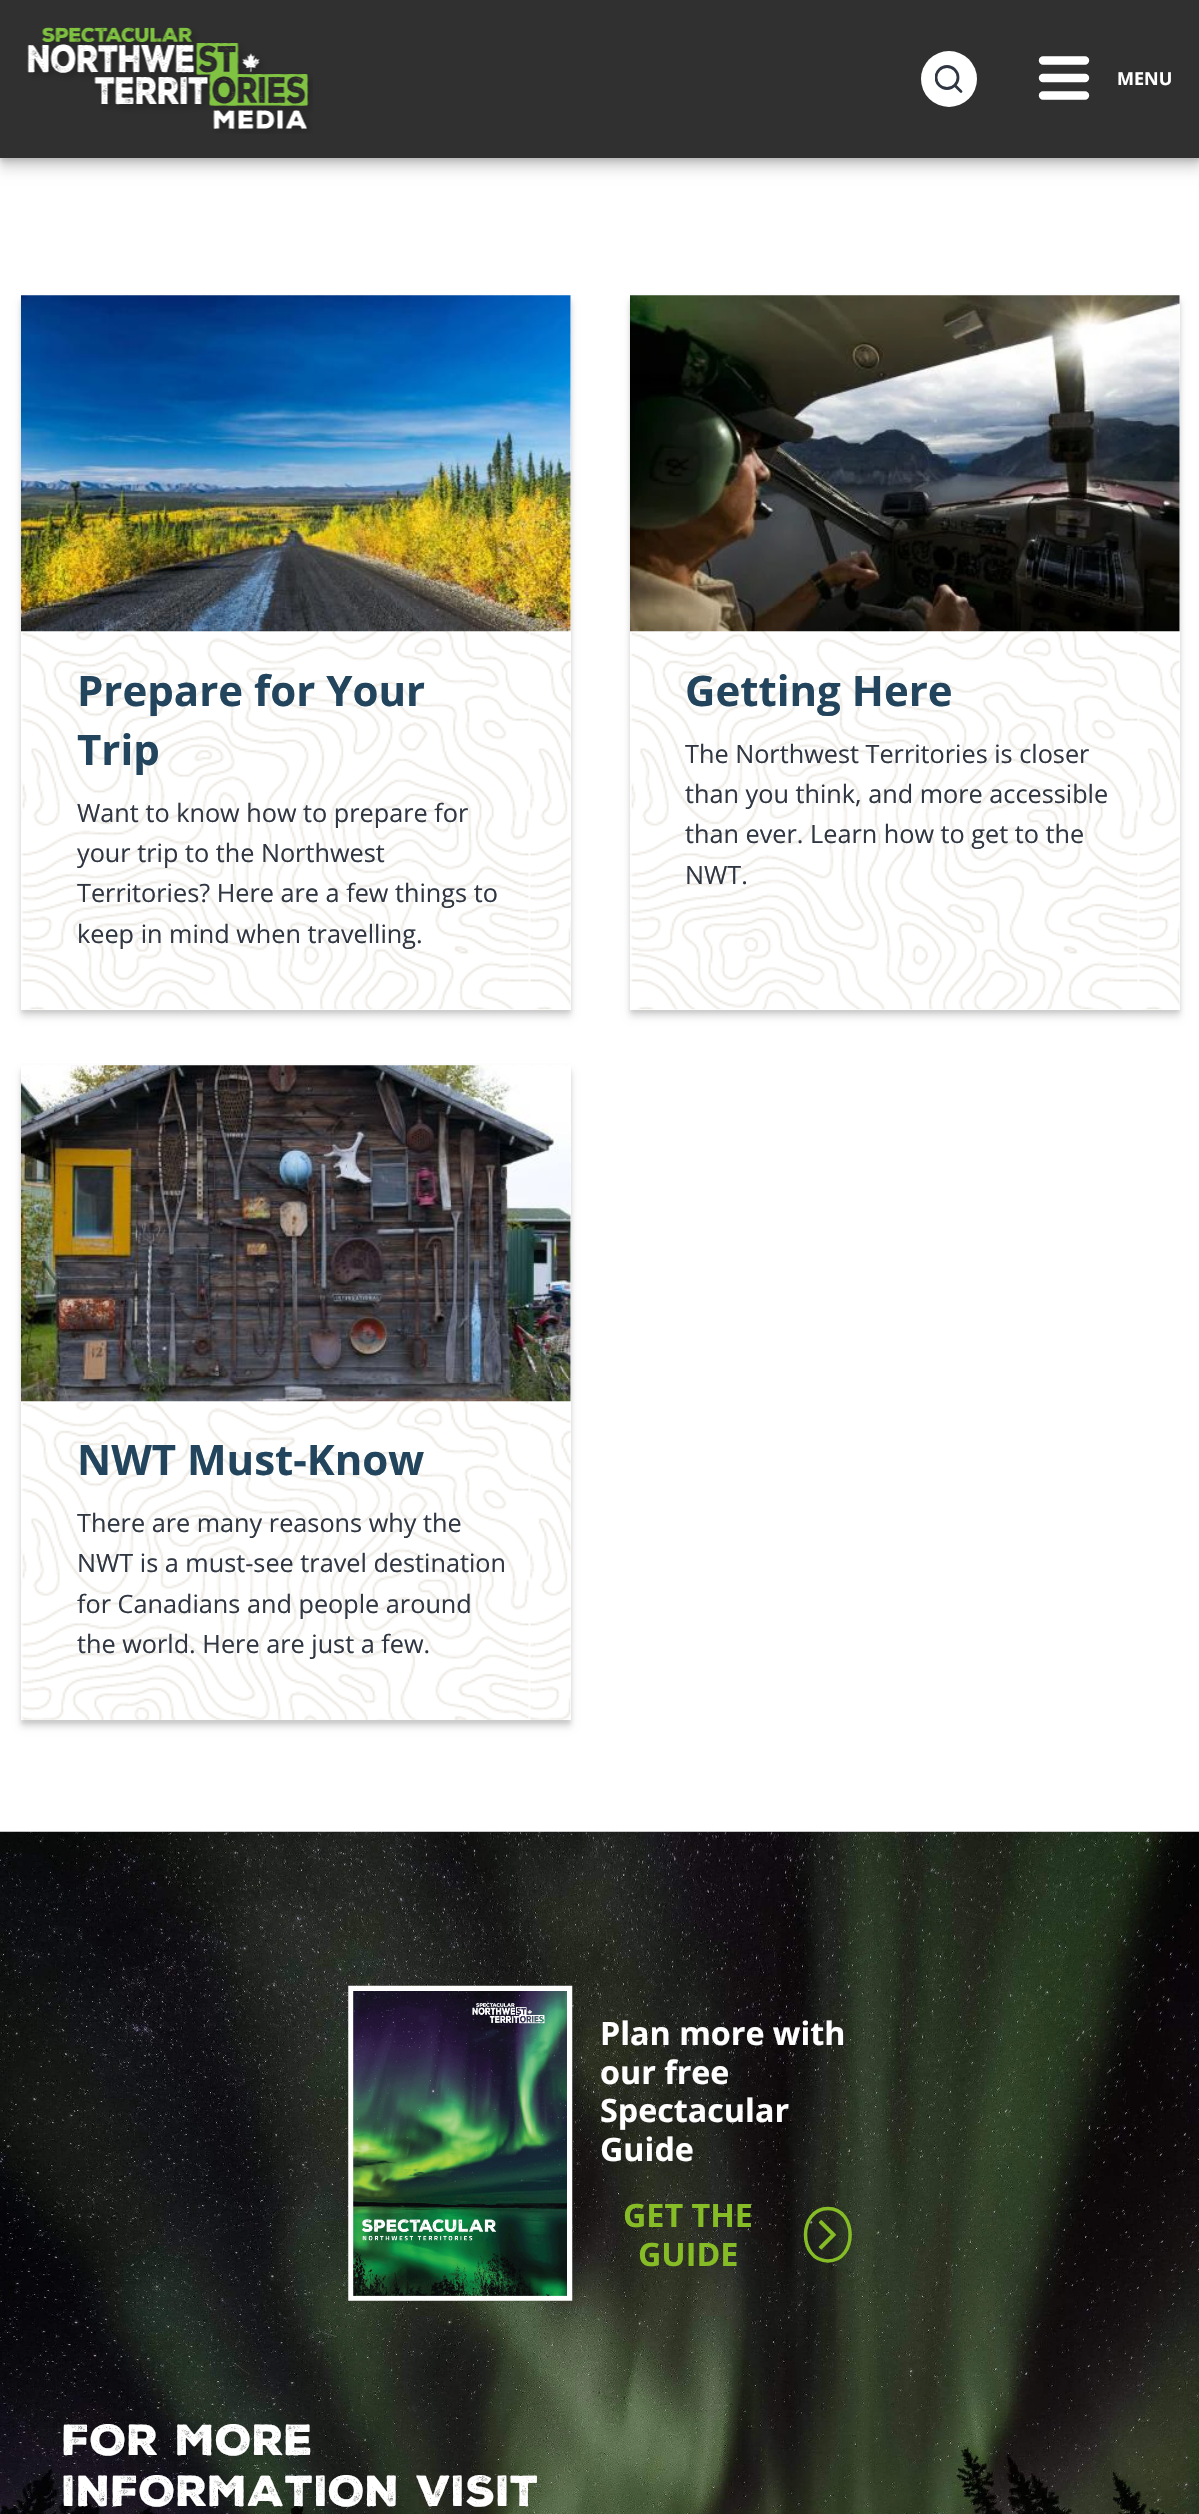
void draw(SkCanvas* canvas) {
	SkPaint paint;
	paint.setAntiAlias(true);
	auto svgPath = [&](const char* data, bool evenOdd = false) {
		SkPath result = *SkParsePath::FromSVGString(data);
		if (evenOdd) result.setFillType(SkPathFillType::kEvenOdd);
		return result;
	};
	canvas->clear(0xffffffff);
	paint.setColor(0x14000000);
	paint.setMaskFilter(SkMaskFilter::MakeBlur(kNormal_SkBlurStyle, 5));
	canvas->drawRect(SkRect::MakeXYWH(0, 14, 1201, 158), paint);
	paint.setMaskFilter(nullptr);
	paint.setColor(0x1a000000);
	paint.setMaskFilter(SkMaskFilter::MakeBlur(kNormal_SkBlurStyle, 3.5));
	canvas->drawRect(SkRect::MakeXYWH(0, 7, 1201, 158), paint);
	paint.setMaskFilter(nullptr);
	paint.setColor(0x1f000000);
	paint.setMaskFilter(SkMaskFilter::MakeBlur(kNormal_SkBlurStyle, 2));
	canvas->drawRect(SkRect::MakeXYWH(0, 4, 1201, 157), paint);
	paint.setMaskFilter(nullptr);
	paint.setColor(0xff303030);
	canvas->drawRect(SkRect::MakeXYWH(0, 0, 1199, 158), paint);
	canvas->drawImageRect(SkImages::DeferredFromEncodedData(SkData::MakeFromFileName("img1.png")), SkRect::MakeXYWH(27, 27, 286, 107), SkSamplingOptions());
	paint.setColor(0xffffffff);
	canvas->drawCircle(949, 79, 28, paint);
	canvas->save();
	canvas->clipRect(SkRect::MakeXYWH(935, 65, 28, 28));
	paint.setStroke(true);
	paint.setStrokeWidth(2.8);
	paint.setColor(0xff303742);
	canvas->drawCircle(947, 77.5, 11, paint);
	canvas->restore();
	paint.setStrokeCap(SkPaint::kRound_Cap);
	paint.setStrokeJoin(SkPaint::kRound_Join);
	canvas->drawPath(svgPath("M961 91.5L955 85.5"), paint);
	paint.setStrokeWidth(8.4);
	paint.setColor(0xffffffff);
	canvas->drawPath(svgPath("M1043 60.5H1085M1043 78H1085M1085 95.5H1043"), paint);
	SkFont f1(fontMgr->matchFamilyStyle("Open Sans", SkFontStyle::Bold()), 18);
	f1.setSubpixel(true);
	paint.setStroke(false);
	canvas->drawString("MENU", 1117, 85, f1, paint);
	paint.setColor(0x1c000000);
	paint.setMaskFilter(SkMaskFilter::MakeBlur(kNormal_SkBlurStyle, 3.5));
	canvas->drawRect(SkRect::MakeXYWH(21, 303, 550, 714), paint);
	paint.setMaskFilter(nullptr);
	paint.setMaskFilter(SkMaskFilter::MakeBlur(kNormal_SkBlurStyle, 2));
	canvas->drawRect(SkRect::MakeXYWH(21, 299, 550, 714), paint);
	paint.setMaskFilter(nullptr);
	paint.setColor(0xffffffff);
	canvas->drawRect(SkRect::MakeXYWH(21, 296, 550, 714), paint);
	canvas->drawImageRect(SkImages::DeferredFromEncodedData(SkData::MakeFromFileName("img2.png")), SkRect::MakeXYWH(21, 295, 550, 715), SkSamplingOptions());
	canvas->drawImageRect(SkImages::DeferredFromEncodedData(SkData::MakeFromFileName("img3.png")), SkRect::MakeXYWH(21, 295, 550, 337), SkSamplingOptions());
	SkFont f2(fontMgr->matchFamilyStyle("Open Sans", SkFontStyle::Bold()), 42);
	f2.setSubpixel(true);
	paint.setColor(0xff22455d);
	canvas->drawString("Prepare for Your", 77, 706, f2, paint);
	canvas->drawString("Trip", 77, 765, f2, paint);
	SkFont f3(fontMgr->matchFamilyStyle("Open Sans", SkFontStyle::Normal()), 25.25);
	f3.setSubpixel(true);
	paint.setColor(0xff303742);
	canvas->drawString("Want to know how to prepare for", 77, 822, f3, paint);
	canvas->drawString("your trip to the Northwest", 77, 862, f3, paint);
	canvas->drawString("Territories? Here are a few things to", 77, 902, f3, paint);
	canvas->drawString("keep in mind when travelling.", 77, 943, f3, paint);
	paint.setColor(0x1c000000);
	paint.setMaskFilter(SkMaskFilter::MakeBlur(kNormal_SkBlurStyle, 3.5));
	canvas->drawRect(SkRect::MakeXYWH(630, 303, 550, 714), paint);
	paint.setMaskFilter(nullptr);
	paint.setMaskFilter(SkMaskFilter::MakeBlur(kNormal_SkBlurStyle, 2));
	canvas->drawRect(SkRect::MakeXYWH(630, 299, 550, 714), paint);
	paint.setMaskFilter(nullptr);
	paint.setColor(0xffffffff);
	canvas->drawRect(SkRect::MakeXYWH(630, 296, 550, 714), paint);
	canvas->drawImageRect(SkImages::DeferredFromEncodedData(SkData::MakeFromFileName("img2.png")), SkRect::MakeXYWH(630, 295, 550, 715), SkSamplingOptions());
	canvas->drawImageRect(SkImages::DeferredFromEncodedData(SkData::MakeFromFileName("img4.png")), SkRect::MakeXYWH(630, 295, 550, 337), SkSamplingOptions());
	paint.setColor(0xff22455d);
	canvas->drawString("Getting Here", 685, 706, f2, paint);
	paint.setColor(0xff303742);
	canvas->drawString("The Northwest Territories is closer", 685, 763, f3, paint);
	canvas->drawString("than you think, and more accessible", 685, 803, f3, paint);
	canvas->drawString("than ever. Learn how to get to the", 685, 843, f3, paint);
	canvas->drawString("NWT.", 685, 884, f3, paint);
	paint.setColor(0x1c000000);
	paint.setMaskFilter(SkMaskFilter::MakeBlur(kNormal_SkBlurStyle, 3.5));
	canvas->drawRect(SkRect::MakeXYWH(21, 1073, 550, 654), paint);
	paint.setMaskFilter(nullptr);
	paint.setMaskFilter(SkMaskFilter::MakeBlur(kNormal_SkBlurStyle, 2));
	canvas->drawRect(SkRect::MakeXYWH(21, 1069, 550, 655), paint);
	paint.setMaskFilter(nullptr);
	paint.setColor(0xffffffff);
	canvas->drawRect(SkRect::MakeXYWH(21, 1066, 550, 654), paint);
	canvas->drawImageRect(SkImages::DeferredFromEncodedData(SkData::MakeFromFileName("img5.png")), SkRect::MakeXYWH(21, 1065, 550, 655), SkSamplingOptions());
	canvas->drawImageRect(SkImages::DeferredFromEncodedData(SkData::MakeFromFileName("img6.png")), SkRect::MakeXYWH(21, 1065, 550, 337), SkSamplingOptions());
	paint.setColor(0xff22455d);
	canvas->drawString("NWT Must-Know", 77, 1475, f2, paint);
	paint.setColor(0xff303742);
	canvas->drawString("There are many reasons why the", 77, 1532, f3, paint);
	canvas->drawString("NWT is a must-see travel destination", 77, 1572, f3, paint);
	canvas->drawString("for Canadians and people around", 77, 1613, f3, paint);
	canvas->drawString("the world. Here are just a few.", 77, 1653, f3, paint);
	canvas->drawImageRect(SkImages::DeferredFromEncodedData(SkData::MakeFromFileName("img7.png")), SkRect::MakeXYWH(0, 1831, 1199, 683), SkSamplingOptions());
	canvas->drawImageRect(SkImages::DeferredFromEncodedData(SkData::MakeFromFileName("img8.png")), SkRect::MakeXYWH(348, 1985, 225, 316), SkSamplingOptions());
	SkFont f4(fontMgr->matchFamilyStyle("Open Sans", SkFontStyle::Bold()), 32.25);
	f4.setSubpixel(true);
	paint.setColor(0xffffffff);
	canvas->drawString("Plan more with", 600, 2045, f4, paint);
	canvas->drawString("our free", 600, 2084, f4, paint);
	canvas->drawString("Spectacular", 600, 2122, f4, paint);
	canvas->drawString("Guide", 600, 2161, f4, paint);
	paint.setColor(0xff86bc25);
	canvas->drawString("GET THE", 623, 2227, f4, paint);
	canvas->drawString("GUIDE", 638, 2266, f4, paint);
	paint.setStroke(true);
	paint.setStrokeWidth(3.5);
	paint.setStrokeCap(SkPaint::kButt_Cap);
	paint.setStrokeJoin(SkPaint::kMiter_Join);
	canvas->drawPath(svgPath("M828 2208.5C857.5 2208.5 857.5 2261 828 2261C798 2261 798 2208.5 828 2208.5Z"), paint);
	canvas->drawImageRect(SkImages::DeferredFromEncodedData(SkData::MakeFromFileName("img9.png")), SkRect::MakeXYWH(818, 2220, 18, 30), SkSamplingOptions());
	SkFont f5(fontMgr->matchFamilyStyle("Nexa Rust", SkFontStyle::Normal()), 42);
	f5.setSubpixel(true);
	paint.setStroke(false);
	paint.setColor(0xffffffff);
	canvas->drawString("FOR MORE", 62, 2455, f5, paint);
	canvas->drawString("INFORMATION VISIT", 62, 2506, f5, paint);
}
